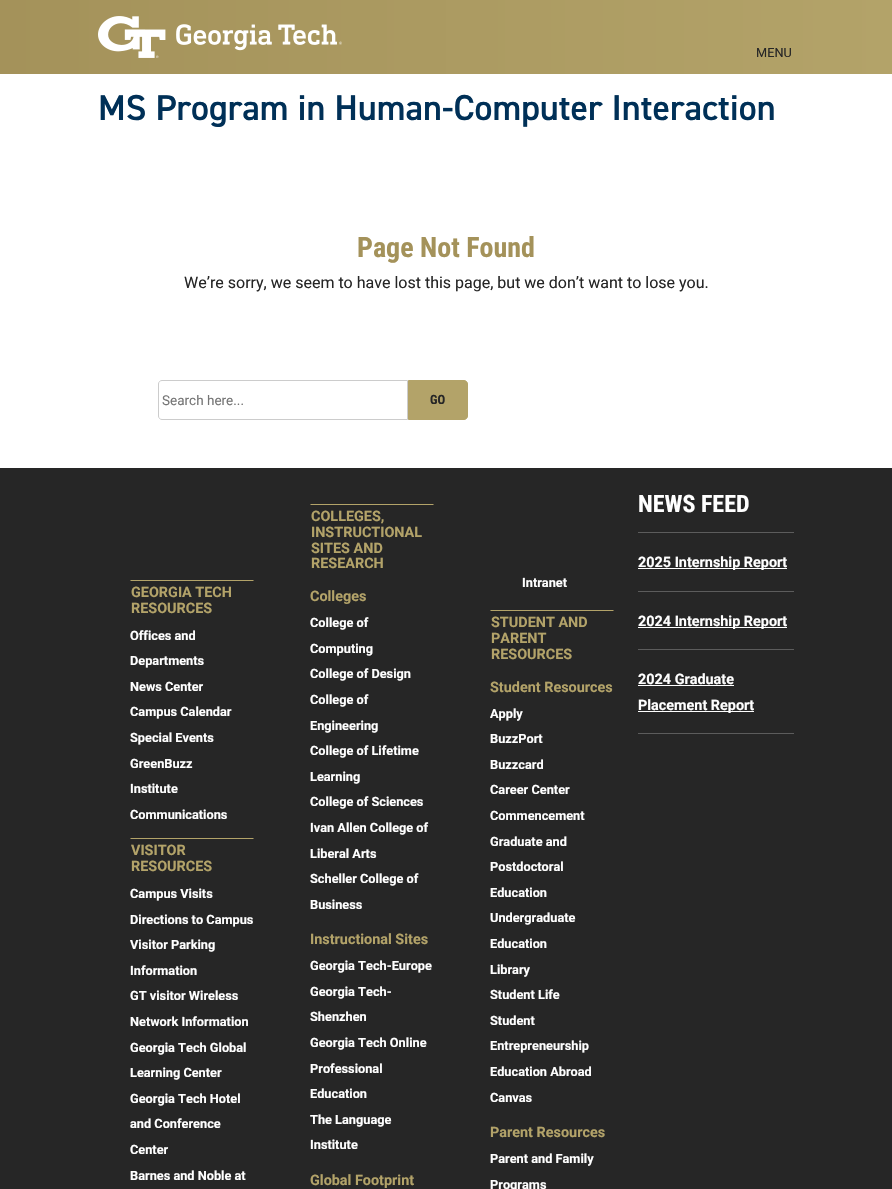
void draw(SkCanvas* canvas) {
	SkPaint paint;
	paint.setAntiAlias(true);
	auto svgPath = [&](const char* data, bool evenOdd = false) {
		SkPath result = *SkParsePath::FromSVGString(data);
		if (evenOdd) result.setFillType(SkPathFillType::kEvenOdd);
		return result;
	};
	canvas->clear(0xffffffff);
	{
		const SkColor colors[] = {0xffa4925a, 0xffb3a369};
		const float stops[] = {0, 1};
		const SkPoint ends[] = {{0, 37}, {892, 37}};
		paint.setShader(SkGradientShader::MakeLinear(ends, colors, stops, 2, SkTileMode::kClamp));
		paint.setAlpha(255);
	}
	canvas->drawRect(SkRect::MakeXYWH(0, 0, 892, 74), paint);
	canvas->drawImageRect(SkImages::DeferredFromEncodedData(SkData::MakeFromFileName("img1.png")), SkRect::MakeXYWH(98, 16, 244, 42), SkSamplingOptions());
	SkFont f1(fontMgr->matchFamilyStyle("Roboto", SkFontStyle::Normal()), 12.75);
	f1.setSubpixel(true);
	paint.setShader(nullptr);
	paint.setColor(0xff262626);
	canvas->drawString("MENU", 756, 57, f1, paint);
	SkFont f2(fontMgr->matchFamilyStyle("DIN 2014", SkFontStyle(600, SkFontStyle::kNormal_Width, SkFontStyle::kUpright_Slant)), 36);
	f2.setSubpixel(true);
	paint.setColor(0xff003057);
	canvas->drawString("MS Program in Human-Computer Interaction", 98, 120, f2, paint);
	SkFont f3(fontMgr->matchFamilyStyle("Roboto Condensed", SkFontStyle::Bold()), 28);
	f3.setSubpixel(true);
	paint.setColor(0xffa4925a);
	canvas->drawString("Page Not Found", 357, 257, f3, paint);
	SkFont f4(fontMgr->matchFamilyStyle("Roboto", SkFontStyle::Normal()), 16);
	f4.setSubpixel(true);
	paint.setColor(0xff262626);
	canvas->drawString("We’re sorry, we seem to have lost this page, but we don’t want to lose you.", 184, 288, f4, paint);
	paint.setStroke(true);
	paint.setStrokeWidth(1);
	paint.setColor(0xffcccccc);
	canvas->drawPath(svgPath("M162 380.5H407.5V419.5H162C160 419.5 158.5 418 158.5 416V384C158.5 382 160 380.5 162 380.5Z"), paint);
	SkFont f5(fontMgr->matchFamilyStyle("Roboto", SkFontStyle::Normal()), 13.5);
	f5.setSubpixel(true);
	paint.setStroke(false);
	paint.setColor(0xff757575);
	canvas->drawString("Search here...", 162, 405, f5, paint);
	paint.setColor(0xffb3a369);
	canvas->drawPath(svgPath("M408.5 380.5H464C466 380.5 467.5 382 467.5 384V416C467.5 418 466 419.5 464 419.5H408.5Z"), paint);
	paint.setStroke(true);
	canvas->drawPath(svgPath("M408.5 380.5H464C466 380.5 467.5 382 467.5 384V416C467.5 418 466 419.5 464 419.5H408.5Z"), paint);
	SkFont f6(fontMgr->matchFamilyStyle("Roboto Condensed", SkFontStyle::Bold()), 12.75);
	f6.setSubpixel(true);
	paint.setStroke(false);
	paint.setColor(0xff262626);
	canvas->drawString("GO", 430, 404, f6, paint);
	canvas->drawRect(SkRect::MakeXYWH(0, 468, 892, 721), paint);
	paint.setColor(0xffb3a369);
	canvas->drawPath(svgPath("M130 580H254L253 581H131Z"), paint);
	SkFont f7(fontMgr->matchFamilyStyle("Roboto", SkFontStyle::Bold()), 14.4);
	f7.setSubpixel(true);
	canvas->drawString("GEORGIA TECH", 131, 597, f7, paint);
	canvas->drawString("RESOURCES", 131, 613, f7, paint);
	SkFont f8(fontMgr->matchFamilyStyle("Roboto", SkFontStyle::Bold()), 12.75);
	f8.setSubpixel(true);
	paint.setColor(0xffffffff);
	canvas->drawString("Offices and", 130, 640, f8, paint);
	canvas->drawString("Departments", 130, 665, f8, paint);
	canvas->drawString("News Center", 130, 691, f8, paint);
	canvas->drawString("Campus Calendar", 130, 716, f8, paint);
	canvas->drawString("Special Events", 130, 742, f8, paint);
	canvas->drawString("GreenBuzz", 130, 768, f8, paint);
	canvas->drawString("Institute", 130, 793, f8, paint);
	canvas->drawString("Communications", 130, 819, f8, paint);
	paint.setColor(0xffb3a369);
	canvas->drawPath(svgPath("M130 838H254L253 839H131Z"), paint);
	canvas->drawString("VISITOR", 131, 855, f7, paint);
	canvas->drawString("RESOURCES", 131, 871, f7, paint);
	paint.setColor(0xffffffff);
	canvas->drawString("Campus Visits", 130, 898, f8, paint);
	canvas->drawString("Directions to Campus", 130, 924, f8, paint);
	canvas->drawString("Visitor Parking", 130, 949, f8, paint);
	canvas->drawString("Information", 130, 975, f8, paint);
	canvas->drawString("GT visitor Wireless", 130, 1000, f8, paint);
	canvas->drawString("Network Information", 130, 1026, f8, paint);
	canvas->drawString("Georgia Tech Global", 130, 1052, f8, paint);
	canvas->drawString("Learning Center", 130, 1077, f8, paint);
	canvas->drawString("Georgia Tech Hotel", 130, 1103, f8, paint);
	canvas->drawString("and Conference", 130, 1128, f8, paint);
	canvas->drawString("Center", 130, 1154, f8, paint);
	canvas->drawString("Barnes and Noble at", 130, 1180, f8, paint);
	paint.setColor(0xffb3a369);
	canvas->drawPath(svgPath("M310 504H434L433 505H311Z"), paint);
	canvas->drawString("COLLEGES,", 311, 521, f7, paint);
	canvas->drawString("INSTRUCTIONAL", 311, 537, f7, paint);
	canvas->drawString("SITES AND", 311, 553, f7, paint);
	canvas->drawString("RESEARCH", 311, 568, f7, paint);
	canvas->drawString("Colleges", 310, 601, f7, paint);
	paint.setColor(0xffffffff);
	canvas->drawString("College of", 310, 627, f8, paint);
	canvas->drawString("Computing", 310, 653, f8, paint);
	canvas->drawString("College of Design", 310, 678, f8, paint);
	canvas->drawString("College of", 310, 704, f8, paint);
	canvas->drawString("Engineering", 310, 730, f8, paint);
	canvas->drawString("College of Lifetime", 310, 755, f8, paint);
	canvas->drawString("Learning", 310, 781, f8, paint);
	canvas->drawString("College of Sciences", 310, 806, f8, paint);
	canvas->drawString("Ivan Allen College of", 310, 832, f8, paint);
	canvas->drawString("Liberal Arts", 310, 858, f8, paint);
	canvas->drawString("Scheller College of", 310, 883, f8, paint);
	canvas->drawString("Business", 310, 909, f8, paint);
	paint.setColor(0xffb3a369);
	canvas->drawString("Instructional Sites", 310, 944, f7, paint);
	paint.setColor(0xffffffff);
	canvas->drawString("Georgia Tech-Europe", 310, 970, f8, paint);
	canvas->drawString("Georgia Tech-", 310, 996, f8, paint);
	canvas->drawString("Shenzhen", 310, 1021, f8, paint);
	canvas->drawString("Georgia Tech Online", 310, 1047, f8, paint);
	canvas->drawString("Professional", 310, 1073, f8, paint);
	canvas->drawString("Education", 310, 1098, f8, paint);
	canvas->drawString("The Language", 310, 1124, f8, paint);
	canvas->drawString("Institute", 310, 1149, f8, paint);
	paint.setColor(0xffb3a369);
	canvas->drawString("Global Footprint", 310, 1185, f7, paint);
	paint.setColor(0xffffffff);
	canvas->drawString("Intranet", 522, 587, f8, paint);
	paint.setColor(0xffb3a369);
	canvas->drawPath(svgPath("M490 610H614L613 611H491Z"), paint);
	canvas->drawString("STUDENT AND", 491, 627, f7, paint);
	canvas->drawString("PARENT", 491, 643, f7, paint);
	canvas->drawString("RESOURCES", 491, 659, f7, paint);
	canvas->drawString("Student Resources", 490, 692, f7, paint);
	paint.setColor(0xffffffff);
	canvas->drawString("Apply", 490, 718, f8, paint);
	canvas->drawString("BuzzPort", 490, 743, f8, paint);
	canvas->drawString("Buzzcard", 490, 769, f8, paint);
	canvas->drawString("Career Center", 490, 794, f8, paint);
	canvas->drawString("Commencement", 490, 820, f8, paint);
	canvas->drawString("Graduate and", 490, 846, f8, paint);
	canvas->drawString("Postdoctoral", 490, 871, f8, paint);
	canvas->drawString("Education", 490, 897, f8, paint);
	canvas->drawString("Undergraduate", 490, 922, f8, paint);
	canvas->drawString("Education", 490, 948, f8, paint);
	canvas->drawString("Library", 490, 974, f8, paint);
	canvas->drawString("Student Life", 490, 999, f8, paint);
	canvas->drawString("Student", 490, 1025, f8, paint);
	canvas->drawString("Entrepreneurship", 490, 1050, f8, paint);
	canvas->drawString("Education Abroad", 490, 1076, f8, paint);
	canvas->drawString("Canvas", 490, 1102, f8, paint);
	paint.setColor(0xffb3a369);
	canvas->drawString("Parent Resources", 490, 1137, f7, paint);
	paint.setColor(0xffffffff);
	canvas->drawString("Parent and Family", 490, 1163, f8, paint);
	canvas->drawString("Programs", 490, 1189, f8, paint);
	SkFont f9(fontMgr->matchFamilyStyle("Roboto Condensed", SkFontStyle::Bold()), 24);
	f9.setSubpixel(true);
	canvas->drawString("NEWS FEED", 638, 512, f9, paint);
	paint.setColor(0xff5c5c5c);
	canvas->drawRect(SkRect::MakeXYWH(638, 532, 156, 1), paint);
	paint.setColor(0xffffffff);
	canvas->drawRect(SkRect::MakeXYWH(638, 568, 149, 1), paint);
	canvas->drawString("2025 Internship Report", 638, 567, f7, paint);
	paint.setColor(0xff5c5c5c);
	canvas->drawRect(SkRect::MakeXYWH(638, 591, 156, 1), paint);
	paint.setColor(0xffffffff);
	canvas->drawRect(SkRect::MakeXYWH(638, 627, 149, 1), paint);
	canvas->drawString("2024 Internship Report", 638, 626, f7, paint);
	paint.setColor(0xff5c5c5c);
	canvas->drawRect(SkRect::MakeXYWH(638, 649, 156, 1), paint);
	paint.setColor(0xffffffff);
	canvas->drawString("2024 Graduate", 638, 684, f7, paint);
	canvas->drawRect(SkRect::MakeXYWH(638, 685, 96, 1), paint);
	canvas->drawRect(SkRect::MakeXYWH(638, 711, 116, 1), paint);
	canvas->drawString("Placement Report", 638, 710, f7, paint);
	paint.setColor(0xff5c5c5c);
	canvas->drawRect(SkRect::MakeXYWH(638, 733, 156, 1), paint);
}
